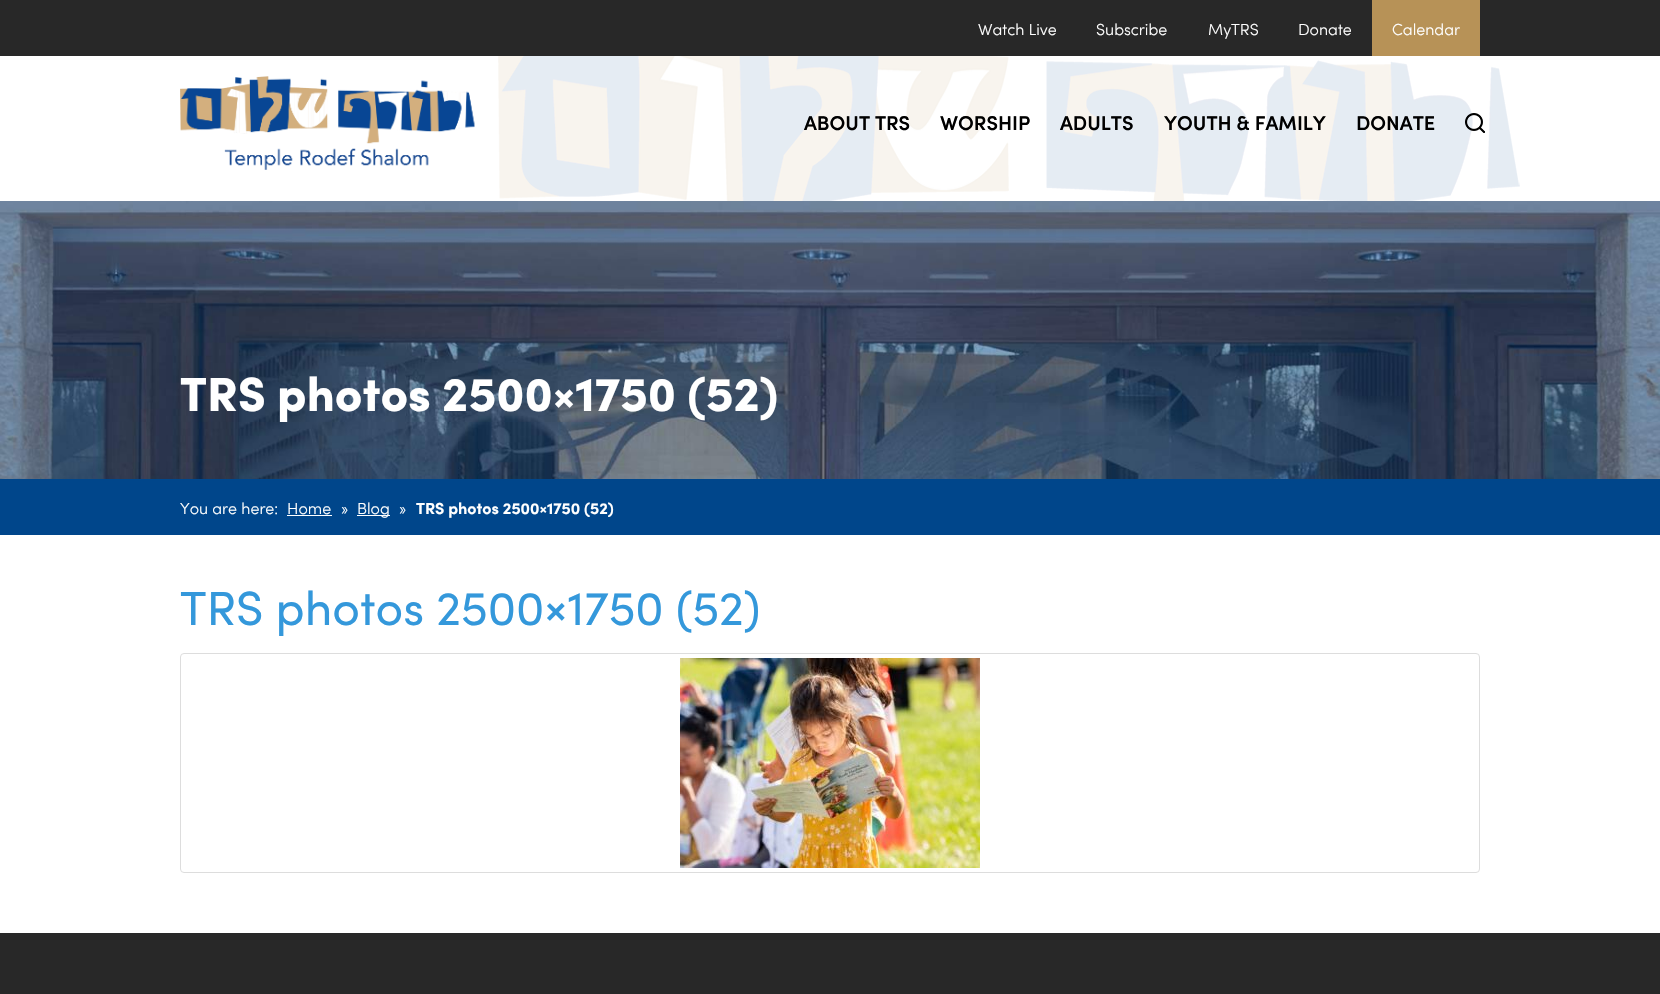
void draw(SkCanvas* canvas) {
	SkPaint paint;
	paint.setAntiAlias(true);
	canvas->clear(0xffffffff);
	paint.setColor(0xff282828);
	canvas->drawRect(SkRect::MakeXYWH(0, 0, 1660, 56), paint);
	SkFont f1(fontMgr->matchFamilyStyle("Sofia", SkFontStyle(300, SkFontStyle::kNormal_Width, SkFontStyle::kUpright_Slant)), 16);
	f1.setSubpixel(true);
	paint.setColor(0xffffffff);
	canvas->drawString("Watch Live", 978, 35, f1, paint);
	canvas->drawString("Subscribe", 1096, 35, f1, paint);
	canvas->drawString("MyTRS", 1208, 35, f1, paint);
	canvas->drawString("Donate", 1298, 35, f1, paint);
	paint.setColor(0xffb79257);
	canvas->drawRect(SkRect::MakeXYWH(1372, 0, 108, 56), paint);
	paint.setColor(0xffffffff);
	canvas->drawString("Calendar", 1392, 35, f1, paint);
	canvas->drawImageRect(SkImages::DeferredFromEncodedData(SkData::MakeFromFileName("img1.png")), SkRect::MakeXYWH(498, 56, 1022, 145), SkSamplingOptions());
	canvas->drawImageRect(SkImages::DeferredFromEncodedData(SkData::MakeFromFileName("img2.png")), SkRect::MakeXYWH(180, 76, 295, 94), SkSamplingOptions());
	SkFont f2(fontMgr->matchFamilyStyle("Sofia", SkFontStyle(600, SkFontStyle::kNormal_Width, SkFontStyle::kUpright_Slant)), 20);
	f2.setSubpixel(true);
	paint.setColor(0xff000000);
	canvas->drawString("ABOUT TRS", 804, 130, f2, paint);
	canvas->drawString("WORSHIP", 940, 130, f2, paint);
	canvas->drawString("ADULTS", 1060, 130, f2, paint);
	canvas->drawString("YOUTH & FAMILY", 1164, 130, f2, paint);
	canvas->drawString("DONATE", 1356, 130, f2, paint);
	canvas->drawImageRect(SkImages::DeferredFromEncodedData(SkData::MakeFromFileName("img3.png")), SkRect::MakeXYWH(1465, 113, 20, 20), SkSamplingOptions());
	canvas->drawImageRect(SkImages::DeferredFromEncodedData(SkData::MakeFromFileName("img4.png")), SkRect::MakeXYWH(0, 201, 1660, 278), SkSamplingOptions());
	SkFont f3(fontMgr->matchFamilyStyle("Sofia", SkFontStyle(900, SkFontStyle::kNormal_Width, SkFontStyle::kUpright_Slant)), 48);
	f3.setSubpixel(true);
	paint.setColor(0xffffffff);
	canvas->drawString("TRS photos 2500×1750 (52)", 180, 411, f3, paint);
	paint.setColor(0xff00468b);
	canvas->drawRect(SkRect::MakeXYWH(0, 479, 1660, 56), paint);
	paint.setColor(0xffffffff);
	canvas->drawString("You are here:", 180, 514, f1, paint);
	canvas->drawString("Home", 287, 514, f1, paint);
	canvas->drawRect(SkRect::MakeXYWH(287, 515, 45, 1), paint);
	canvas->drawString("»", 341, 514, f1, paint);
	canvas->drawRect(SkRect::MakeXYWH(357, 515, 33, 1), paint);
	canvas->drawString("Blog", 357, 514, f1, paint);
	canvas->drawString("»", 399, 514, f1, paint);
	SkFont f4(fontMgr->matchFamilyStyle("Sofia", SkFontStyle::Bold()), 16);
	f4.setSubpixel(true);
	canvas->drawString("TRS photos 2500×1750 (52)", 416, 514, f4, paint);
	SkFont f5(fontMgr->matchFamilyStyle("Sofia", SkFontStyle::Normal()), 48);
	f5.setSubpixel(true);
	paint.setColor(0xff3498db);
	canvas->drawString("TRS photos 2500×1750 (52)", 180, 625, f5, paint);
	paint.setStroke(true);
	paint.setStrokeWidth(1);
	paint.setColor(0xffdddddd);
	canvas->drawRoundRect(SkRect::MakeXYWH(180.5, 653.5, 1299, 219), 3.5, 3.5, paint);
	canvas->drawImageRect(SkImages::DeferredFromEncodedData(SkData::MakeFromFileName("img5.png")), SkRect::MakeXYWH(680, 658, 300, 210), SkSamplingOptions());
	paint.setStroke(false);
	paint.setColor(0xff282828);
	canvas->drawRect(SkRect::MakeXYWH(0, 933, 1660, 61), paint);
}
